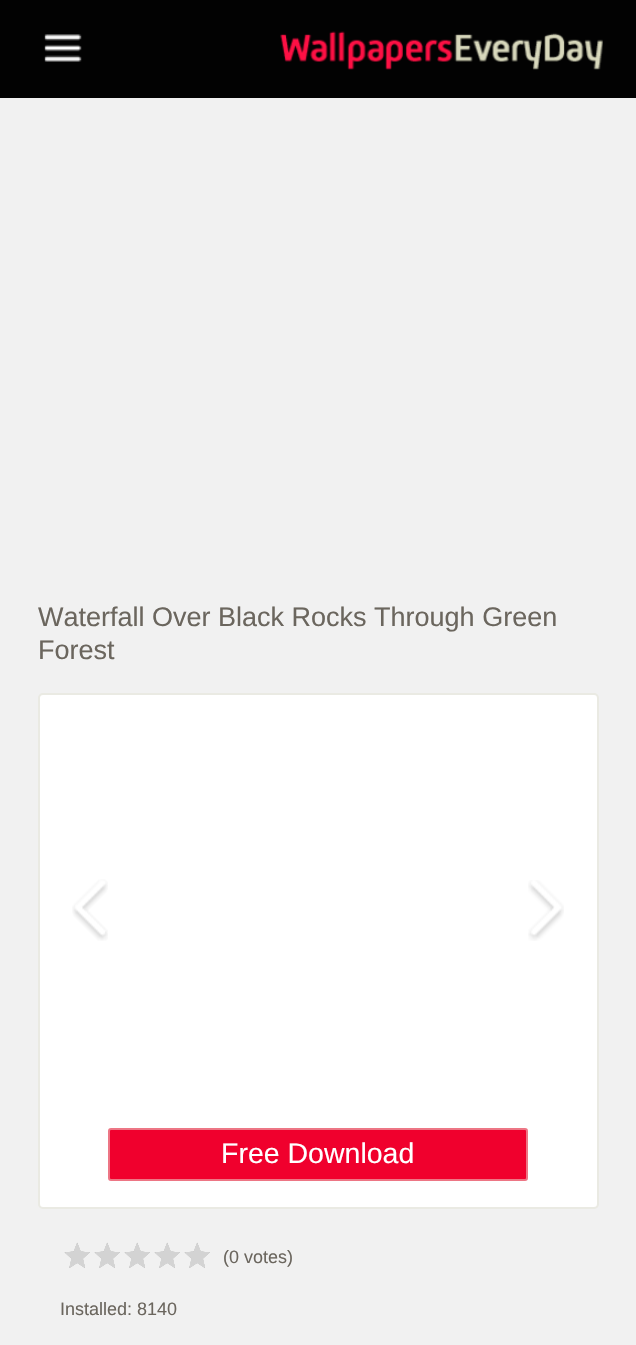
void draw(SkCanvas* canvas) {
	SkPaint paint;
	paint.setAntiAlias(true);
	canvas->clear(0xfff1f1f1);
	paint.setColor(0xff020202);
	canvas->drawRect(SkRect::MakeXYWH(0, 0, 636, 98), paint);
	canvas->drawImageRect(SkImages::DeferredFromEncodedData(SkData::MakeFromFileName("img1.png")), SkRect::MakeXYWH(44, 34, 38, 28), SkSamplingOptions());
	canvas->drawImageRect(SkImages::DeferredFromEncodedData(SkData::MakeFromFileName("img2.png")), SkRect::MakeXYWH(280, 31, 323, 39), SkSamplingOptions());
	SkFont f1(fontMgr->matchFamilyStyle("Liberation Sans", SkFontStyle::Normal()), 27);
	f1.setSubpixel(true);
	paint.setColor(0xff6b665e);
	canvas->drawString("Waterfall Over Black Rocks Through Green", 38, 626, f1, paint);
	canvas->drawString("Forest", 38, 659, f1, paint);
	paint.setColor(0xffffffff);
	canvas->drawRoundRect(SkRect::MakeXYWH(39, 694, 559, 514), 4, 4, paint);
	paint.setStroke(true);
	paint.setStrokeWidth(2);
	paint.setColor(0xffeaeae3);
	canvas->drawRoundRect(SkRect::MakeXYWH(39, 694, 559, 514), 4, 4, paint);
	canvas->drawImageRect(SkImages::DeferredFromEncodedData(SkData::MakeFromFileName("img3.png")), SkRect::MakeXYWH(72, 879, 36, 62), SkSamplingOptions());
	canvas->drawImageRect(SkImages::DeferredFromEncodedData(SkData::MakeFromFileName("img4.png")), SkRect::MakeXYWH(528, 880, 36, 61), SkSamplingOptions());
	paint.setStroke(false);
	paint.setColor(0xfff0002d);
	canvas->drawRoundRect(SkRect::MakeXYWH(109, 1129, 418, 51), 2, 2, paint);
	paint.setStroke(true);
	paint.setColor(0xffed7685);
	canvas->drawRoundRect(SkRect::MakeXYWH(109, 1129, 418, 51), 2, 2, paint);
	SkFont f2(fontMgr->matchFamilyStyle("Liberation Sans", SkFontStyle::Normal()), 28.5);
	f2.setSubpixel(true);
	paint.setStroke(false);
	paint.setColor(0xffffffff);
	canvas->drawString("Free Download", 221, 1163, f2, paint);
	canvas->drawImageRect(SkImages::DeferredFromEncodedData(SkData::MakeFromFileName("img5.png")), SkRect::MakeXYWH(64, 1242, 26, 26), SkSamplingOptions());
	canvas->drawImageRect(SkImages::DeferredFromEncodedData(SkData::MakeFromFileName("img5.png")), SkRect::MakeXYWH(94, 1242, 26, 26), SkSamplingOptions());
	canvas->drawImageRect(SkImages::DeferredFromEncodedData(SkData::MakeFromFileName("img5.png")), SkRect::MakeXYWH(124, 1242, 26, 26), SkSamplingOptions());
	canvas->drawImageRect(SkImages::DeferredFromEncodedData(SkData::MakeFromFileName("img5.png")), SkRect::MakeXYWH(154, 1242, 26, 26), SkSamplingOptions());
	canvas->drawImageRect(SkImages::DeferredFromEncodedData(SkData::MakeFromFileName("img5.png")), SkRect::MakeXYWH(184, 1242, 26, 26), SkSamplingOptions());
	SkFont f3(fontMgr->matchFamilyStyle("Liberation Sans", SkFontStyle::Normal()), 18);
	f3.setSubpixel(true);
	paint.setColor(0xff6b665e);
	canvas->drawString("(0 votes)", 223, 1263, f3, paint);
	canvas->drawString("Installed: 8140", 60, 1315, f3, paint);
}
